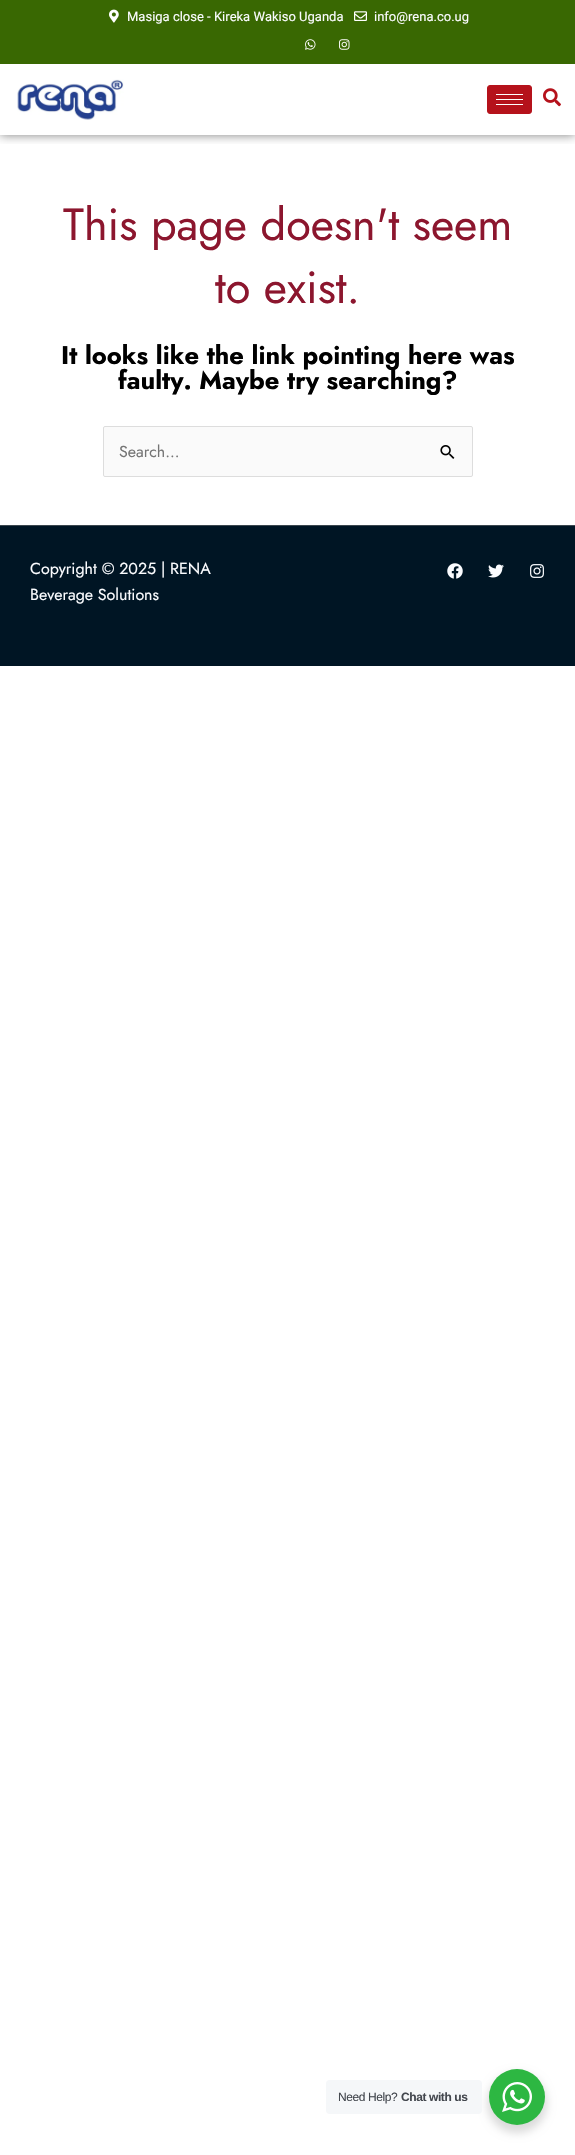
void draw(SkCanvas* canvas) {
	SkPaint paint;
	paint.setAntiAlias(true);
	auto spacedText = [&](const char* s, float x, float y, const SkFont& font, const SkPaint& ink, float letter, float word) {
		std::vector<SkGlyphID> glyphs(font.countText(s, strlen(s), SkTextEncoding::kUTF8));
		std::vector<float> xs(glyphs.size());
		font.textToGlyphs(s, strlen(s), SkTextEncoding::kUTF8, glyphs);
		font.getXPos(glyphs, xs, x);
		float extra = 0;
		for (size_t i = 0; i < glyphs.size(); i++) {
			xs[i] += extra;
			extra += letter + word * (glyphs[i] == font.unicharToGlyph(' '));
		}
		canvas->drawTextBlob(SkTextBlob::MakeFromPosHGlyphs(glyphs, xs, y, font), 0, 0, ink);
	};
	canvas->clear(0xffffffff);
	canvas->save();
	canvas->clipRect(SkRect::MakeXYWH(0, 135, 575, 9));
	paint.setColor(0x80000000);
	paint.setMaskFilter(SkMaskFilter::MakeBlur(kNormal_SkBlurStyle, 5));
	canvas->drawRect(SkRect::MakeXYWH(0, 0, 575, 135), paint);
	paint.setMaskFilter(nullptr);
	canvas->restore();
	paint.setColor(0xff396802);
	canvas->drawRect(SkRect::MakeXYWH(0, 0, 575, 64), paint);
	canvas->drawImageRect(SkImages::DeferredFromEncodedData(SkData::MakeFromFileName("img1.png")), SkRect::MakeXYWH(109, 9, 10, 14), SkSamplingOptions());
	SkFont f1(fontMgr->matchFamilyStyle("Roboto", SkFontStyle::Normal()), 13);
	f1.setSubpixel(true);
	paint.setColor(0xfffbfcff);
	canvas->drawString("Masiga close - Kireka Wakiso Uganda", 127, 21, f1, paint);
	canvas->drawImageRect(SkImages::DeferredFromEncodedData(SkData::MakeFromFileName("img2.png")), SkRect::MakeXYWH(354, 11, 13, 10), SkSamplingOptions());
	canvas->drawString("info@rena.co.ug", 374, 21, f1, paint);
	canvas->drawImageRect(SkImages::DeferredFromEncodedData(SkData::MakeFromFileName("img3.png")), SkRect::MakeXYWH(305, 39, 11, 11), SkSamplingOptions());
	canvas->drawImageRect(SkImages::DeferredFromEncodedData(SkData::MakeFromFileName("img4.png")), SkRect::MakeXYWH(339, 39, 11, 11), SkSamplingOptions());
	canvas->drawImageRect(SkImages::DeferredFromEncodedData(SkData::MakeFromFileName("img5.png")), SkRect::MakeXYWH(17, 79, 107, 41), SkSamplingOptions());
	paint.setColor(0xffb5121b);
	canvas->drawRoundRect(SkRect::MakeXYWH(487.5, 85.5, 44, 28), 2.5, 2.5, paint);
	paint.setStroke(true);
	paint.setStrokeWidth(1);
	canvas->drawRoundRect(SkRect::MakeXYWH(487.5, 85.5, 44, 28), 2.5, 2.5, paint);
	paint.setStroke(false);
	paint.setColor(0xffffffff);
	canvas->drawRect(SkRect::MakeXYWH(496, 94, 27, 1), paint);
	canvas->drawRect(SkRect::MakeXYWH(496, 99, 27, 1), paint);
	canvas->drawRect(SkRect::MakeXYWH(496, 104, 27, 1), paint);
	canvas->drawImageRect(SkImages::DeferredFromEncodedData(SkData::MakeFromFileName("img6.png")), SkRect::MakeXYWH(543, 88, 18, 19), SkSamplingOptions());
	SkFont f2(fontMgr->matchFamilyStyle("Jost", SkFontStyle::Normal()), 45);
	f2.setSubpixel(true);
	paint.setColor(0xff8c162e);
	canvas->drawString("This page doesn't seem", 63, 240, f2, paint);
	canvas->drawString("to exist.", 215, 303, f2, paint);
	SkFont f3(fontMgr->matchFamilyStyle("Jost", SkFontStyle::Bold()), 25.5);
	f3.setSubpixel(true);
	paint.setColor(0xff000000);
	canvas->drawString("It looks like the link pointing here was", 61, 364, f3, paint);
	canvas->drawString("faulty. Maybe try searching?", 118, 389, f3, paint);
	paint.setColor(0xfffafafa);
	canvas->drawRoundRect(SkRect::MakeXYWH(103.5, 426.5, 369, 50), 1.5, 1.5, paint);
	paint.setStroke(true);
	paint.setColor(0xffdddddd);
	canvas->drawRoundRect(SkRect::MakeXYWH(103.5, 426.5, 369, 50), 1.5, 1.5, paint);
	SkFont f4(fontMgr->matchFamilyStyle("Jost", SkFontStyle::Normal()), 16);
	f4.setSubpixel(true);
	paint.setStroke(false);
	paint.setColor(0xff757575);
	canvas->drawString("Search...", 119, 457, f4, paint);
	canvas->drawImageRect(SkImages::DeferredFromEncodedData(SkData::MakeFromFileName("img7.png")), SkRect::MakeXYWH(440, 445, 15, 14), SkSamplingOptions());
	paint.setColor(0xff001524);
	canvas->drawRect(SkRect::MakeXYWH(0, 526, 575, 140), paint);
	paint.setColor(0xff3b464e);
	canvas->drawRect(SkRect::MakeXYWH(0, 525, 575, 1), paint);
	paint.setColor(0xfffbfcff);
	canvas->drawString("Copyright © 2025 | RENA", 30, 574, f4, paint);
	canvas->drawString("Beverage Solutions", 30, 600, f4, paint);
	canvas->drawImageRect(SkImages::DeferredFromEncodedData(SkData::MakeFromFileName("img8.png")), SkRect::MakeXYWH(447, 563, 16, 16), SkSamplingOptions());
	canvas->drawImageRect(SkImages::DeferredFromEncodedData(SkData::MakeFromFileName("img9.png")), SkRect::MakeXYWH(488, 564, 16, 14), SkSamplingOptions());
	canvas->drawImageRect(SkImages::DeferredFromEncodedData(SkData::MakeFromFileName("img10.png")), SkRect::MakeXYWH(530, 564, 14, 14), SkSamplingOptions());
	paint.setColor(0x24000000);
	paint.setMaskFilter(SkMaskFilter::MakeBlur(kNormal_SkBlurStyle, 4));
	canvas->drawRoundRect(SkRect::MakeXYWH(487, 2073, 60, 60), 30, 30, paint);
	paint.setMaskFilter(nullptr);
	paint.setColor(0xfff5f7f9);
	canvas->drawRoundRect(SkRect::MakeXYWH(326, 2080, 156, 34), 4, 4, paint);
	SkFont f5(fontMgr->matchFamilyStyle("Liberation Sans", SkFontStyle::Normal()), 12);
	f5.setSubpixel(true);
	paint.setColor(0xff43474e);
	spacedText("Need Help?", 338, 2101, f5, paint, -0.4, 0);
	SkFont f6(fontMgr->matchFamilyStyle("Liberation Sans", SkFontStyle::Bold()), 12);
	f6.setSubpixel(true);
	spacedText("Chat with us", 401, 2101, f6, paint, -0.4, 0);
	paint.setColor(0xff2db742);
	canvas->drawCircle(517, 2097, 28, paint);
	canvas->drawImageRect(SkImages::DeferredFromEncodedData(SkData::MakeFromFileName("img11.png")), SkRect::MakeXYWH(502, 2082, 30, 30), SkSamplingOptions());
}
